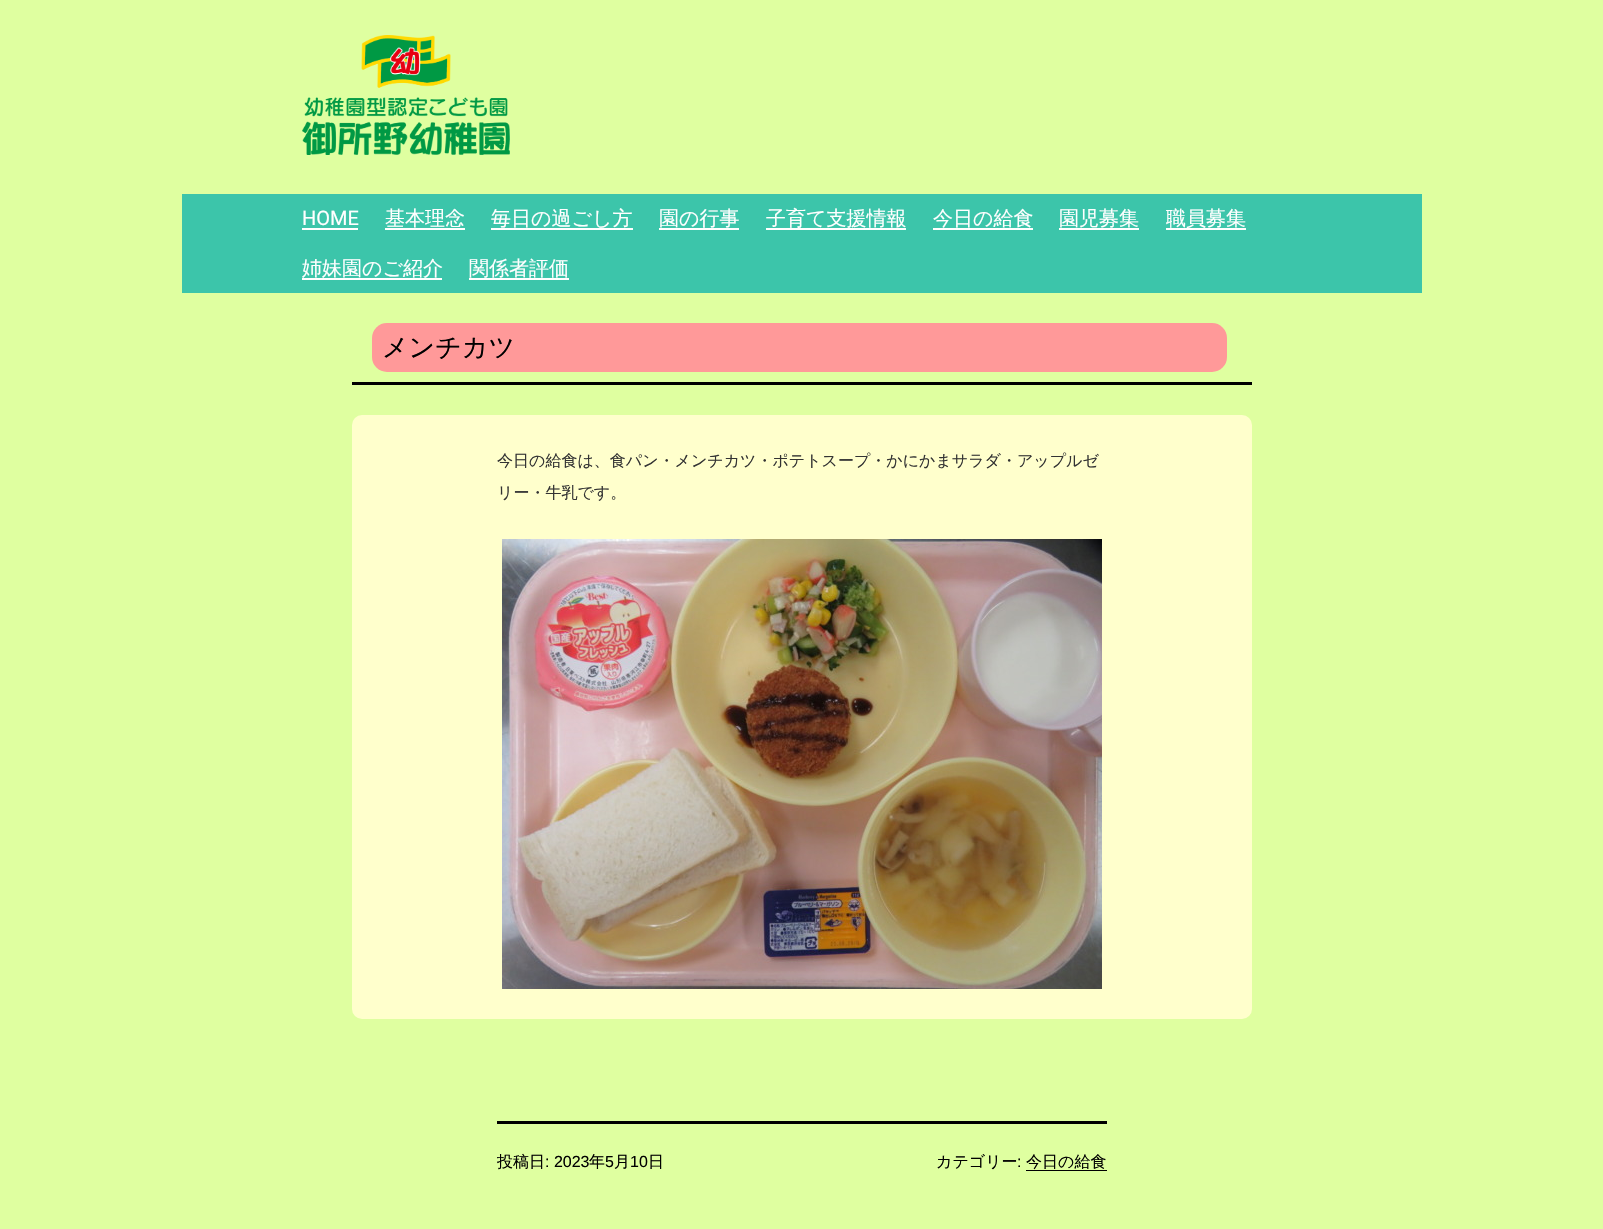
void draw(SkCanvas* canvas) {
	SkPaint paint;
	paint.setAntiAlias(true);
	canvas->clear(0xffdfffa0);
	canvas->drawImageRect(SkImages::DeferredFromEncodedData(SkData::MakeFromFileName("img1.png")), SkRect::MakeXYWH(302, 35, 208, 120), SkSamplingOptions());
	paint.setColor(0xff3cc5aa);
	canvas->drawRect(SkRect::MakeXYWH(182, 194, 1240, 99), paint);
	SkFont f1(fontMgr->matchFamilyStyle("Roboto", SkFontStyle::Normal()), 20);
	f1.setSubpixel(true);
	paint.setColor(0xffffffff);
	canvas->drawString("HOME", 302, 225, f1, paint);
	canvas->drawRect(SkRect::MakeXYWH(302, 228, 56, 2), paint);
	SkFont f2(fontMgr->matchFamilyStyle("WenQuanYi Zen Hei", SkFontStyle(500, SkFontStyle::kNormal_Width, SkFontStyle::kUpright_Slant)), 20);
	f2.setSubpixel(true);
	canvas->drawString("基本理念", 385, 225, f2, paint);
	canvas->drawRect(SkRect::MakeXYWH(385, 228, 80, 2), paint);
	canvas->drawString("毎日の過ごし方", 491, 225, f2, paint);
	canvas->drawRect(SkRect::MakeXYWH(491, 228, 142, 2), paint);
	canvas->drawString("園の行事", 659, 225, f2, paint);
	canvas->drawRect(SkRect::MakeXYWH(659, 228, 80, 2), paint);
	canvas->drawString("子育て支援情報", 766, 225, f2, paint);
	canvas->drawRect(SkRect::MakeXYWH(766, 228, 140, 2), paint);
	canvas->drawString("今日の給食", 933, 225, f2, paint);
	canvas->drawRect(SkRect::MakeXYWH(933, 228, 100, 2), paint);
	canvas->drawString("園児募集", 1059, 225, f2, paint);
	canvas->drawRect(SkRect::MakeXYWH(1059, 228, 80, 2), paint);
	canvas->drawRect(SkRect::MakeXYWH(1166, 228, 80, 2), paint);
	canvas->drawString("職員募集", 1166, 225, f2, paint);
	canvas->drawString("姉妹園のご紹介", 302, 275, f2, paint);
	canvas->drawRect(SkRect::MakeXYWH(302, 278, 140, 2), paint);
	canvas->drawString("関係者評価", 469, 275, f2, paint);
	canvas->drawRect(SkRect::MakeXYWH(469, 278, 100, 2), paint);
	paint.setColor(0xff000000);
	canvas->drawRect(SkRect::MakeXYWH(352, 382, 900, 3), paint);
	paint.setColor(0xffff9999);
	canvas->drawRoundRect(SkRect::MakeXYWH(372, 323, 855, 49), 15, 15, paint);
	SkFont f3(fontMgr->matchFamilyStyle("WenQuanYi Zen Hei", SkFontStyle(500, SkFontStyle::kNormal_Width, SkFontStyle::kUpright_Slant)), 26);
	f3.setSubpixel(true);
	paint.setColor(0xff000000);
	canvas->drawString("メンチカツ", 382, 356, f3, paint);
	paint.setColor(0xffffffcc);
	canvas->drawRoundRect(SkRect::MakeXYWH(352, 415, 900, 604), 10, 10, paint);
	SkFont f4(fontMgr->matchFamilyStyle("WenQuanYi Zen Hei", SkFontStyle(500, SkFontStyle::kNormal_Width, SkFontStyle::kUpright_Slant)), 16);
	f4.setSubpixel(true);
	paint.setColor(0xff333333);
	canvas->drawString("今日の給食は、食パン・メンチカツ・ポテトスープ・かにかまサラダ・アップルゼ", 497, 466, f4, paint);
	canvas->drawString("リー・牛乳です。", 497, 498, f4, paint);
	canvas->drawImageRect(SkImages::DeferredFromEncodedData(SkData::MakeFromFileName("img2.png")), SkRect::MakeXYWH(502, 539, 600, 450), SkSamplingOptions());
	paint.setColor(0xff000000);
	canvas->drawRect(SkRect::MakeXYWH(497, 1121, 610, 3), paint);
	canvas->drawString("投稿日", 497, 1167, f4, paint);
	SkFont f5(fontMgr->matchFamilyStyle("Liberation Sans", SkFontStyle::Normal()), 16);
	f5.setSubpixel(true);
	canvas->drawString(": 2023", 545, 1167, f5, paint);
	canvas->drawString("年", 589, 1167, f4, paint);
	canvas->drawString("5", 605, 1167, f5, paint);
	canvas->drawString("月", 614, 1167, f4, paint);
	canvas->drawString("10", 630, 1167, f5, paint);
	canvas->drawString("日", 648, 1167, f4, paint);
	canvas->drawString("カテゴリー", 936, 1167, f4, paint);
	canvas->drawString(":", 1017, 1167, f5, paint);
	canvas->drawString("今日の給食", 1026, 1167, f4, paint);
	canvas->drawRect(SkRect::MakeXYWH(1026, 1170, 81, 1), paint);
}
